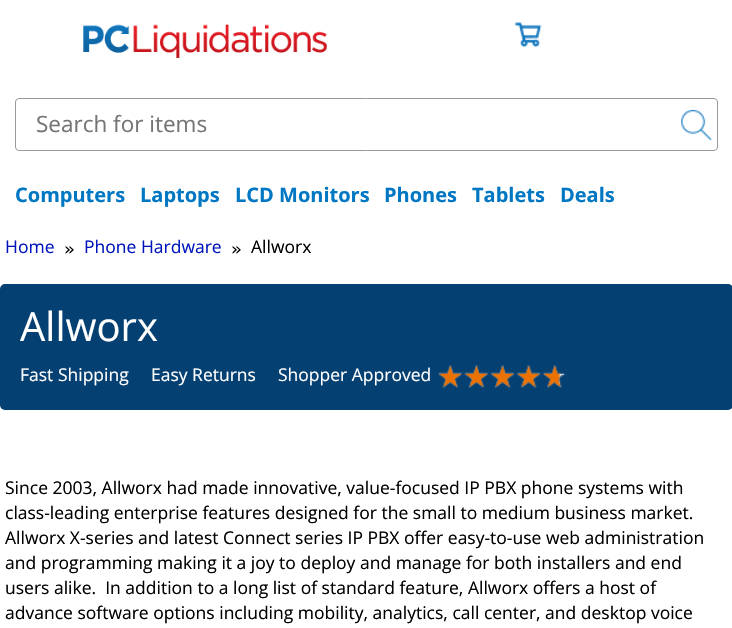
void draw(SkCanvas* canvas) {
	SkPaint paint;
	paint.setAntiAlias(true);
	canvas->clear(0xffffffff);
	canvas->drawImageRect(SkImages::DeferredFromEncodedData(SkData::MakeFromFileName("img1.png")), SkRect::MakeXYWH(83, 24, 244, 34), SkSamplingOptions());
	canvas->drawImageRect(SkImages::DeferredFromEncodedData(SkData::MakeFromFileName("img2.png")), SkRect::MakeXYWH(514, 22, 28, 26), SkSamplingOptions());
	paint.setStroke(true);
	paint.setStrokeWidth(1);
	paint.setColor(0xff999999);
	canvas->drawRoundRect(SkRect::MakeXYWH(15.5, 98.5, 702, 52), 3.5, 3.5, paint);
	SkFont f1(fontMgr->matchFamilyStyle("Open Sans", SkFontStyle::Normal()), 22.5);
	f1.setSubpixel(true);
	paint.setStroke(false);
	paint.setColor(0xff757575);
	canvas->drawString("Search for items", 36, 132, f1, paint);
	canvas->drawImageRect(SkImages::DeferredFromEncodedData(SkData::MakeFromFileName("img3.png")), SkRect::MakeXYWH(681, 109, 31, 32), SkSamplingOptions());
	SkFont f2(fontMgr->matchFamilyStyle("Open Sans", SkFontStyle::Bold()), 20);
	f2.setSubpixel(true);
	paint.setColor(0xff0077c3);
	canvas->drawString("Computers", 15, 202, f2, paint);
	canvas->drawString("Laptops", 140, 202, f2, paint);
	canvas->drawString("LCD Monitors", 235, 202, f2, paint);
	canvas->drawString("Phones", 384, 202, f2, paint);
	canvas->drawString("Tablets", 472, 202, f2, paint);
	canvas->drawString("Deals", 560, 202, f2, paint);
	SkFont f3(fontMgr->matchFamilyStyle("Open Sans", SkFontStyle::Normal()), 17.5);
	f3.setSubpixel(true);
	paint.setColor(0xff0016bc);
	canvas->drawString("Home", 5, 253, f3, paint);
	SkFont f4(fontMgr->matchFamilyStyle("DejaVu Sans Mono", SkFontStyle::Normal()), 17.5);
	f4.setSubpixel(true);
	paint.setColor(0xff000000);
	canvas->drawString("»", 64, 255, f4, paint);
	paint.setColor(0xff0016bc);
	canvas->drawString("Phone Hardware", 84, 253, f3, paint);
	paint.setColor(0xff000000);
	canvas->drawString("»", 231, 255, f4, paint);
	canvas->drawString("Allworx", 251, 253, f3, paint);
	paint.setColor(0xff054072);
	canvas->drawRoundRect(SkRect::MakeXYWH(0, 284, 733, 126), 5, 5, paint);
	SkFont f5(fontMgr->matchFamilyStyle("Open Sans", SkFontStyle::Normal()), 40);
	f5.setSubpixel(true);
	paint.setColor(0xffffffff);
	canvas->drawString("Allworx", 20, 341, f5, paint);
	canvas->drawString("Fast Shipping", 20, 381, f3, paint);
	canvas->drawString("Easy Returns", 151, 381, f3, paint);
	canvas->drawString("Shopper Approved", 278, 381, f3, paint);
	canvas->drawImageRect(SkImages::DeferredFromEncodedData(SkData::MakeFromFileName("img4.png")), SkRect::MakeXYWH(438, 365, 128, 23), SkSamplingOptions());
	paint.setColor(0xff000000);
	canvas->drawString("Since 2003, Allworx had made innovative, value-focused IP PBX phone systems with", 5, 494, f3, paint);
	canvas->drawString("class-leading enterprise features designed for the small to medium business market.", 5, 519, f3, paint);
	canvas->drawString("Allworx X-series and latest Connect series IP PBX offer easy-to-use web administration", 5, 544, f3, paint);
	canvas->drawString("and programming making it a joy to deploy and manage for both installers and end", 5, 569, f3, paint);
	canvas->drawString("users alike.  In addition to a long list of standard feature, Allworx offers a host of", 5, 594, f3, paint);
	canvas->drawString("advance software options including mobility, analytics, call center, and desktop voice", 5, 619, f3, paint);
}
